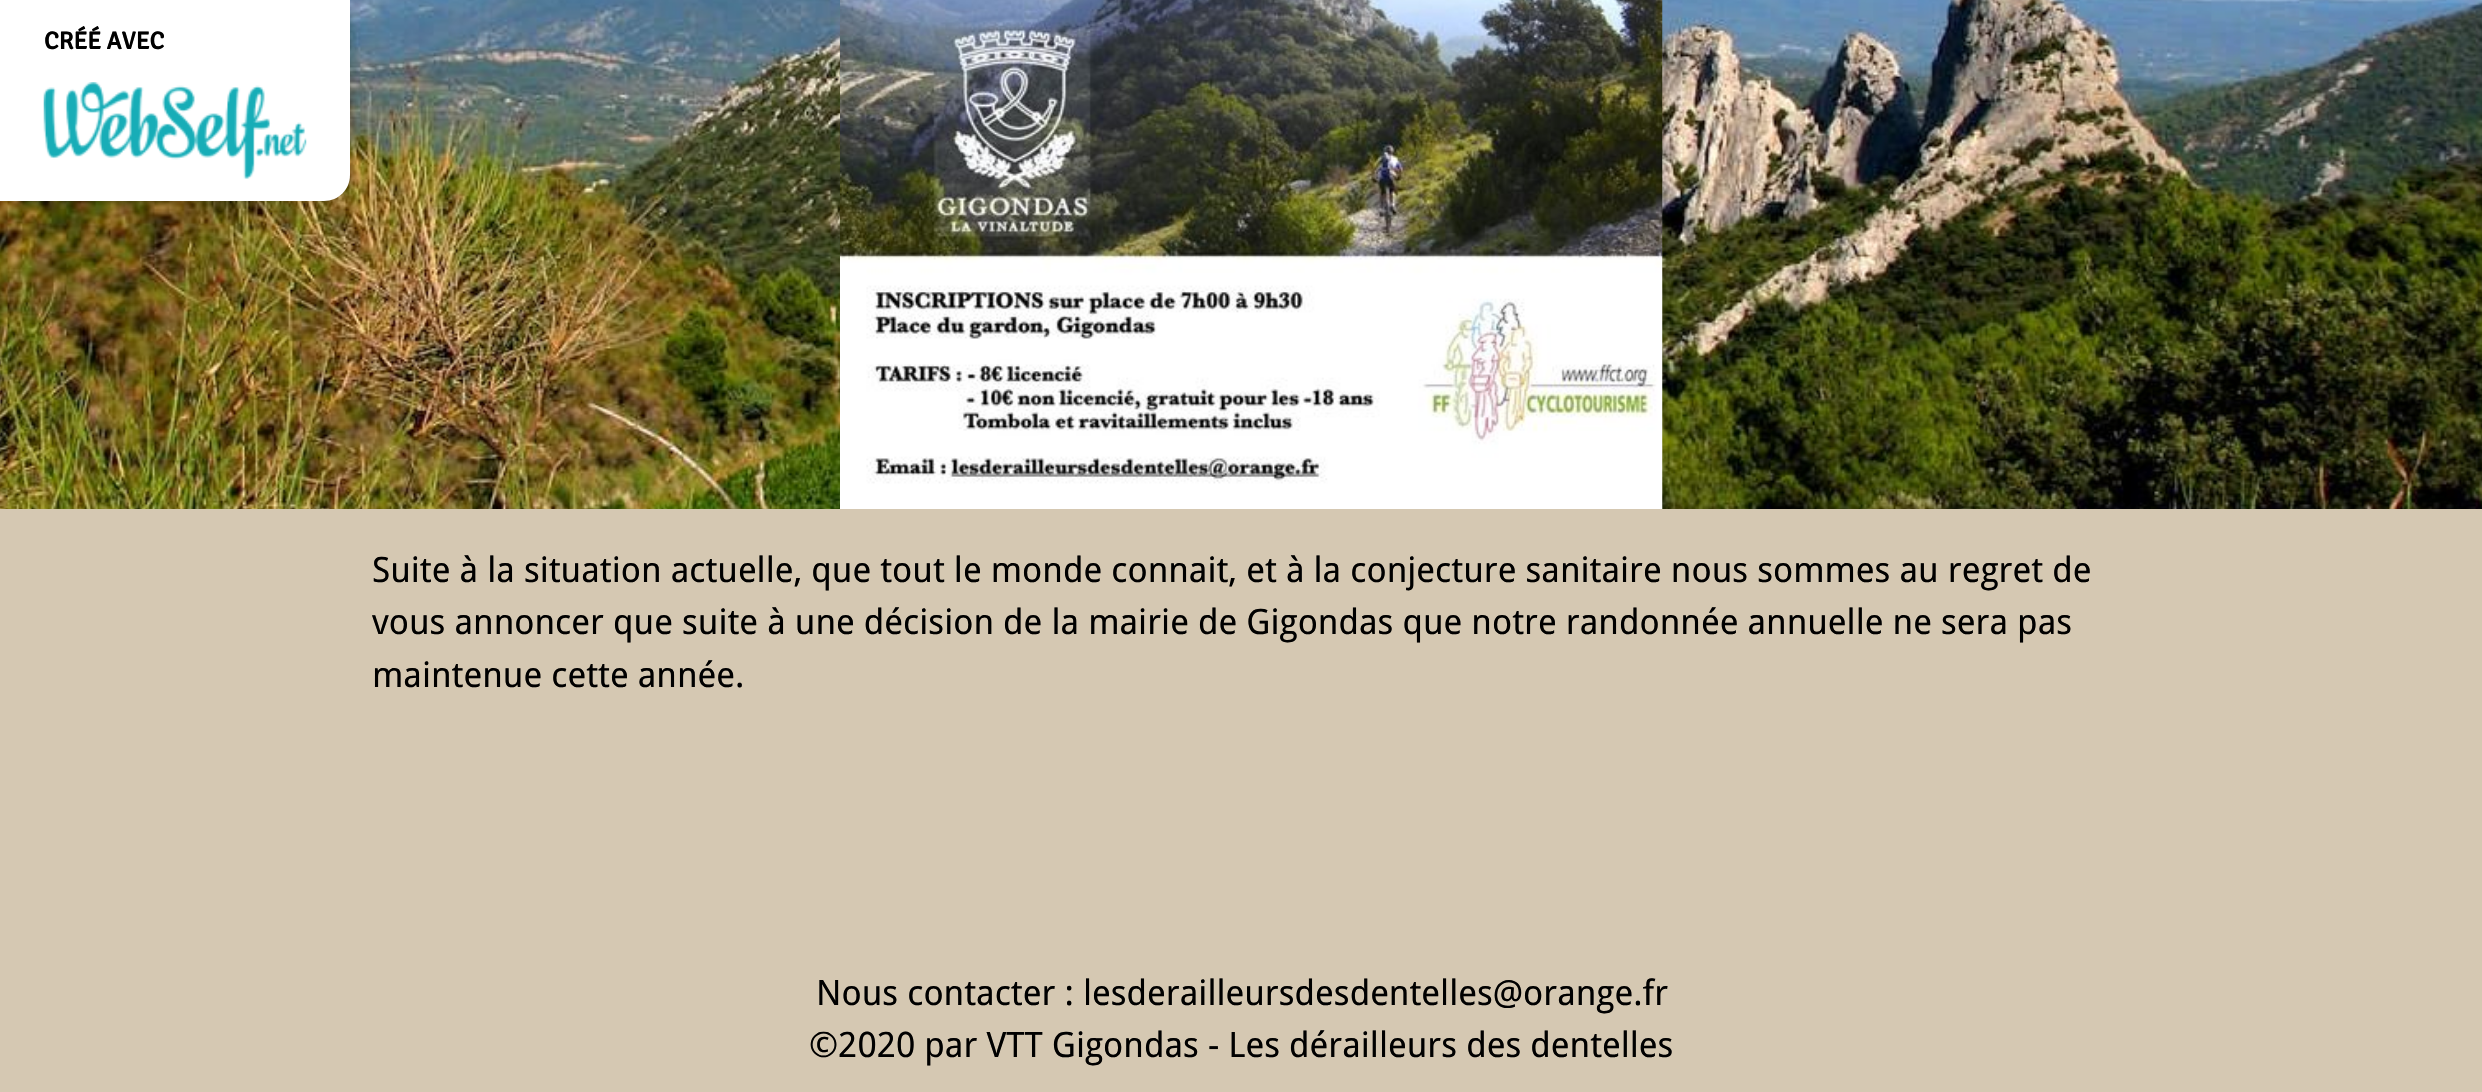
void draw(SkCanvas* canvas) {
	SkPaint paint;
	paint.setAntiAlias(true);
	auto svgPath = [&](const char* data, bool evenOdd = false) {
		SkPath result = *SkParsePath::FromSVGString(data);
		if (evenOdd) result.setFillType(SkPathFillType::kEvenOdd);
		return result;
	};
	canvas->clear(0xffd5c8b2);
	canvas->drawImageRect(SkImages::DeferredFromEncodedData(SkData::MakeFromFileName("img2.png")), SkRect::MakeXYWH(0, 0, 2482, 509), SkSamplingOptions());
	paint.setColor(0x4d000000);
	paint.setMaskFilter(SkMaskFilter::MakeBlur(kNormal_SkBlurStyle, 6));
	canvas->drawRoundRect(SkRect::MakeXYWH(0, 0, 350, 201), 26, 26, paint);
	paint.setMaskFilter(nullptr);
	paint.setColor(0xffffffff);
	canvas->drawPath(svgPath("M0 0H350V175C350 189.5 338.5 201 324 201H0Z"), paint);
	SkFont f1(fontMgr->matchFamilyStyle("Signika", SkFontStyle::Bold()), 24.5);
	f1.setSubpixel(true);
	paint.setColor(0xff000000);
	canvas->drawString("CRÉÉ AVEC", 44, 49, f1, paint);
	canvas->drawImageRect(SkImages::DeferredFromEncodedData(SkData::MakeFromFileName("img1.png")), SkRect::MakeXYWH(43, 82, 264, 97), SkSamplingOptions());
	canvas->drawImageRect(SkImages::DeferredFromEncodedData(SkData::MakeFromFileName("img3.png")), SkRect::MakeXYWH(840, 0, 823, 509), SkSamplingOptions());
	SkFont f2(fontMgr->matchFamilyStyle("Droid Sans", SkFontStyle::Normal()), 35);
	f2.setSubpixel(true);
	canvas->drawString("Suite à la situation actuelle, que tout le monde connait, et à la conjecture sanitaire nous sommes au regret de", 372, 582, f2, paint);
	canvas->drawString("vous annoncer que suite à une décision de la mairie de Gigondas que notre randonnée annuelle ne sera pas", 372, 634, f2, paint);
	canvas->drawString("maintenue cette année.", 372, 687, f2, paint);
	canvas->drawString("Nous contacter : lesderailleursdesdentelles@orange.fr", 816, 1005, f2, paint);
	canvas->drawString("©2020 par VTT Gigondas - Les dérailleurs des dentelles", 809, 1057, f2, paint);
}
